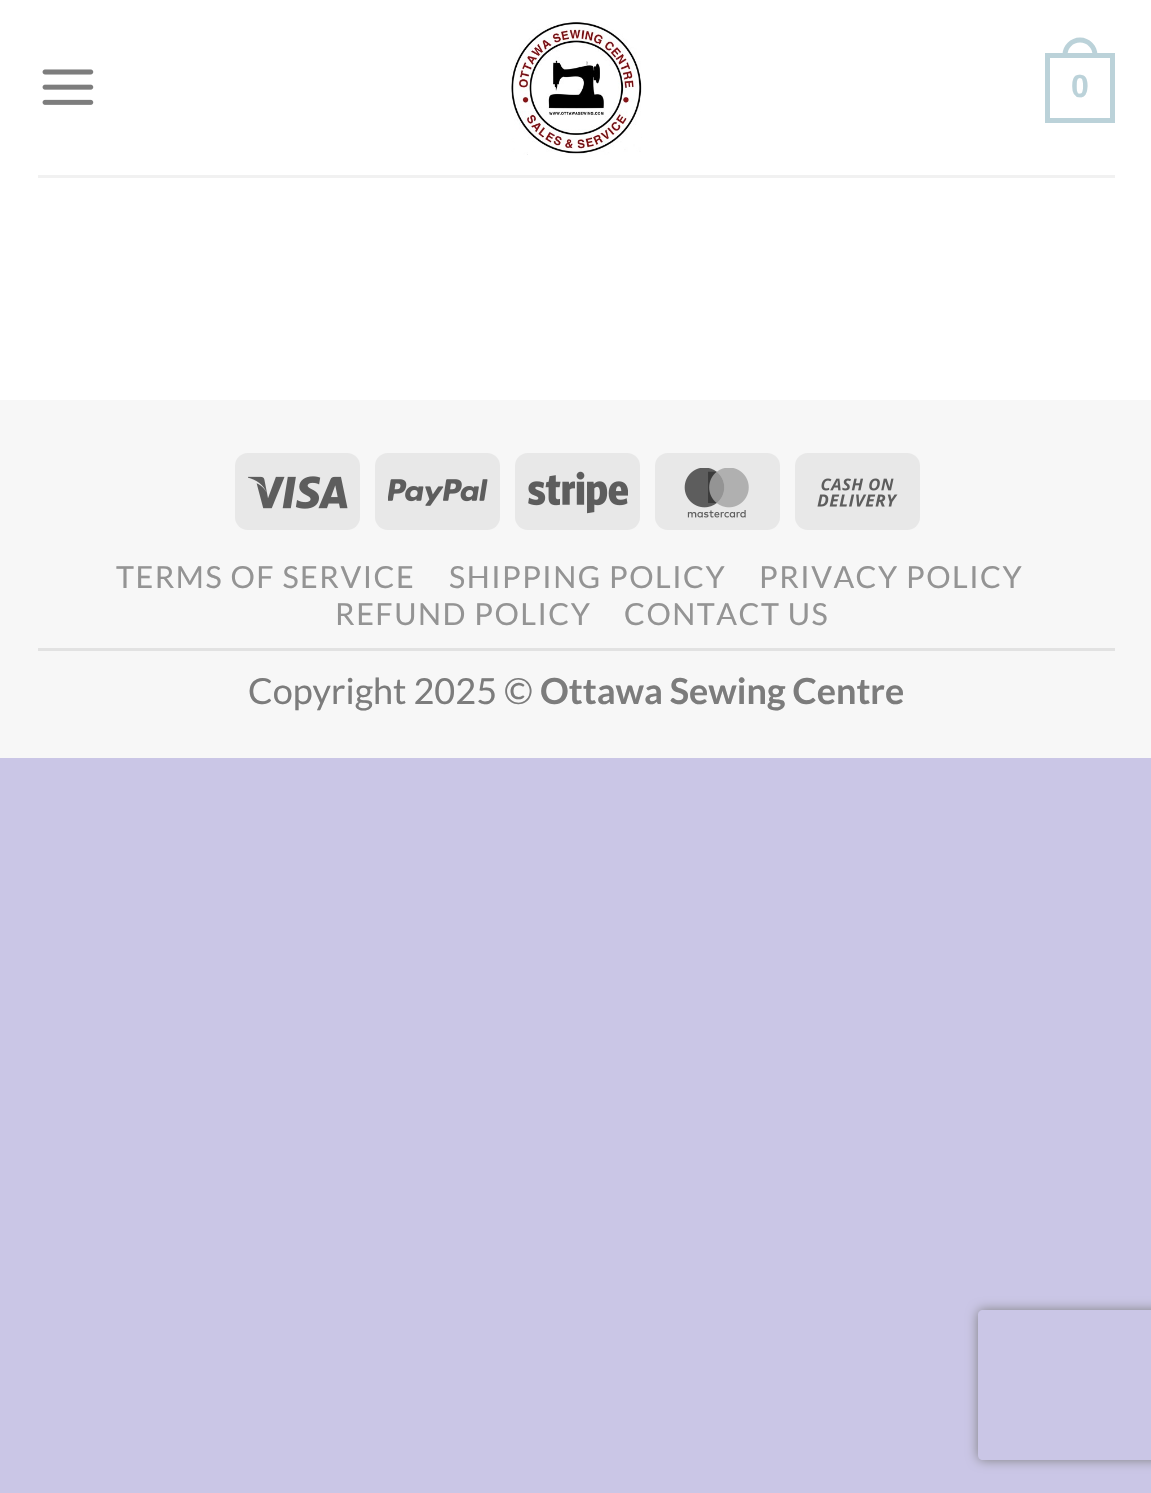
void draw(SkCanvas* canvas) {
	SkPaint paint;
	paint.setAntiAlias(true);
	auto spacedText = [&](const char* s, float x, float y, const SkFont& font, const SkPaint& ink, float letter, float word) {
		std::vector<SkGlyphID> glyphs(font.countText(s, strlen(s), SkTextEncoding::kUTF8));
		std::vector<float> xs(glyphs.size());
		font.textToGlyphs(s, strlen(s), SkTextEncoding::kUTF8, glyphs);
		font.getXPos(glyphs, xs, x);
		float extra = 0;
		for (size_t i = 0; i < glyphs.size(); i++) {
			xs[i] += extra;
			extra += letter + word * (glyphs[i] == font.unicharToGlyph(' '));
		}
		canvas->drawTextBlob(SkTextBlob::MakeFromPosHGlyphs(glyphs, xs, y, font), 0, 0, ink);
	};
	auto svgPath = [&](const char* data, bool evenOdd = false) {
		SkPath result = *SkParsePath::FromSVGString(data);
		if (evenOdd) result.setFillType(SkPathFillType::kEvenOdd);
		return result;
	};
	canvas->clear(0xffcac6e6);
	paint.setColor(0xffffffff);
	canvas->drawRect(SkRect::MakeXYWH(0, 0, 1151, 400), paint);
	canvas->drawImageRect(SkImages::DeferredFromEncodedData(SkData::MakeFromFileName("img1.png")), SkRect::MakeXYWH(42, 69, 52, 36), SkSamplingOptions());
	canvas->drawImageRect(SkImages::DeferredFromEncodedData(SkData::MakeFromFileName("img2.png")), SkRect::MakeXYWH(511, 21, 131, 134), SkSamplingOptions());
	paint.setStroke(true);
	paint.setStrokeWidth(5);
	paint.setColor(0xffbbd2d9);
	canvas->drawRect(SkRect::MakeXYWH(1047.5, 55.5, 65, 65), paint);
	paint.setStroke(false);
	canvas->drawPath(svgPath("M1080 37.5C1089.5 37.5 1097.5 45.5 1097.5 55V57.5H1062.5V55C1062.5 45.5 1070.5 37.5 1080 37.5ZM1080 42.5C1087 42.5 1092.5 48 1092.5 55V57.5H1067.5V55C1067.5 48 1073 42.5 1080 42.5Z", true), paint);
	SkFont f1(fontMgr->matchFamilyStyle("Liberation Sans", SkFontStyle::Bold()), 32);
	f1.setSubpixel(true);
	canvas->drawString("0", 1071, 97, f1, paint);
	paint.setColor(0xfff1f1f1);
	canvas->drawRect(SkRect::MakeXYWH(38, 175, 1077, 3), paint);
	paint.setColor(0xfff7f7f7);
	canvas->drawRect(SkRect::MakeXYWH(0, 400, 1151, 358), paint);
	paint.setColor(0xffe8e8e8);
	canvas->drawRoundRect(SkRect::MakeXYWH(235, 453, 125, 77), 13, 13, paint);
	canvas->drawImageRect(SkImages::DeferredFromEncodedData(SkData::MakeFromFileName("img3.png")), SkRect::MakeXYWH(248, 476, 100, 33), SkSamplingOptions());
	canvas->drawRoundRect(SkRect::MakeXYWH(375, 453, 125, 77), 13, 13, paint);
	canvas->drawImageRect(SkImages::DeferredFromEncodedData(SkData::MakeFromFileName("img4.png")), SkRect::MakeXYWH(388, 479, 100, 27), SkSamplingOptions());
	canvas->drawRoundRect(SkRect::MakeXYWH(515, 453, 125, 77), 13, 13, paint);
	canvas->drawImageRect(SkImages::DeferredFromEncodedData(SkData::MakeFromFileName("img5.png")), SkRect::MakeXYWH(528, 471, 100, 43), SkSamplingOptions());
	canvas->drawRoundRect(SkRect::MakeXYWH(655, 453, 125, 77), 13, 13, paint);
	canvas->drawImageRect(SkImages::DeferredFromEncodedData(SkData::MakeFromFileName("img6.png")), SkRect::MakeXYWH(684, 468, 65, 50), SkSamplingOptions());
	canvas->drawRoundRect(SkRect::MakeXYWH(795, 453, 125, 77), 13, 13, paint);
	canvas->drawImageRect(SkImages::DeferredFromEncodedData(SkData::MakeFromFileName("img7.png")), SkRect::MakeXYWH(817, 478, 81, 29), SkSamplingOptions());
	paint.setColor(0xffe2e2e2);
	canvas->drawRect(SkRect::MakeXYWH(38, 648, 1077, 3), paint);
	SkFont f2(fontMgr->matchFamilyStyle("Lato", SkFontStyle::Normal()), 30.5);
	f2.setSubpixel(true);
	paint.setColor(0xff949494);
	spacedText("TERMS OF SERVICE", 116, 588, f2, paint, 1.5, 0);
	spacedText("SHIPPING POLICY", 449, 588, f2, paint, 1.5, 0);
	spacedText("PRIVACY POLICY", 759, 588, f2, paint, 1.5, 0);
	spacedText("REFUND POLICY", 335, 625, f2, paint, 1.5, 0);
	spacedText("CONTACT US", 624, 625, f2, paint, 1.5, 0);
	SkFont f3(fontMgr->matchFamilyStyle("Lato", SkFontStyle::Normal()), 36);
	f3.setSubpixel(true);
	paint.setColor(0xff7c7c7c);
	canvas->drawString("Copyright 2025 ©", 248, 704, f3, paint);
	SkFont f4(fontMgr->matchFamilyStyle("Lato", SkFontStyle::Bold()), 36);
	f4.setSubpixel(true);
	canvas->drawString("Ottawa Sewing Centre", 540, 704, f4, paint);
	canvas->save();
	canvas->clipPath(svgPath("M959 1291H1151V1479H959ZM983 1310H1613C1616 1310 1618 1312 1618 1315V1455C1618 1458 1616 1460 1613 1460H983C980 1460 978 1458 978 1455V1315C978 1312 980 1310 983 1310Z", true), true);
	paint.setColor(0xff808080);
	paint.setMaskFilter(SkMaskFilter::MakeBlur(kNormal_SkBlurStyle, 6));
	canvas->drawRoundRect(SkRect::MakeXYWH(978, 1310, 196, 150), 5, 5, paint);
	paint.setMaskFilter(nullptr);
	canvas->restore();
}
